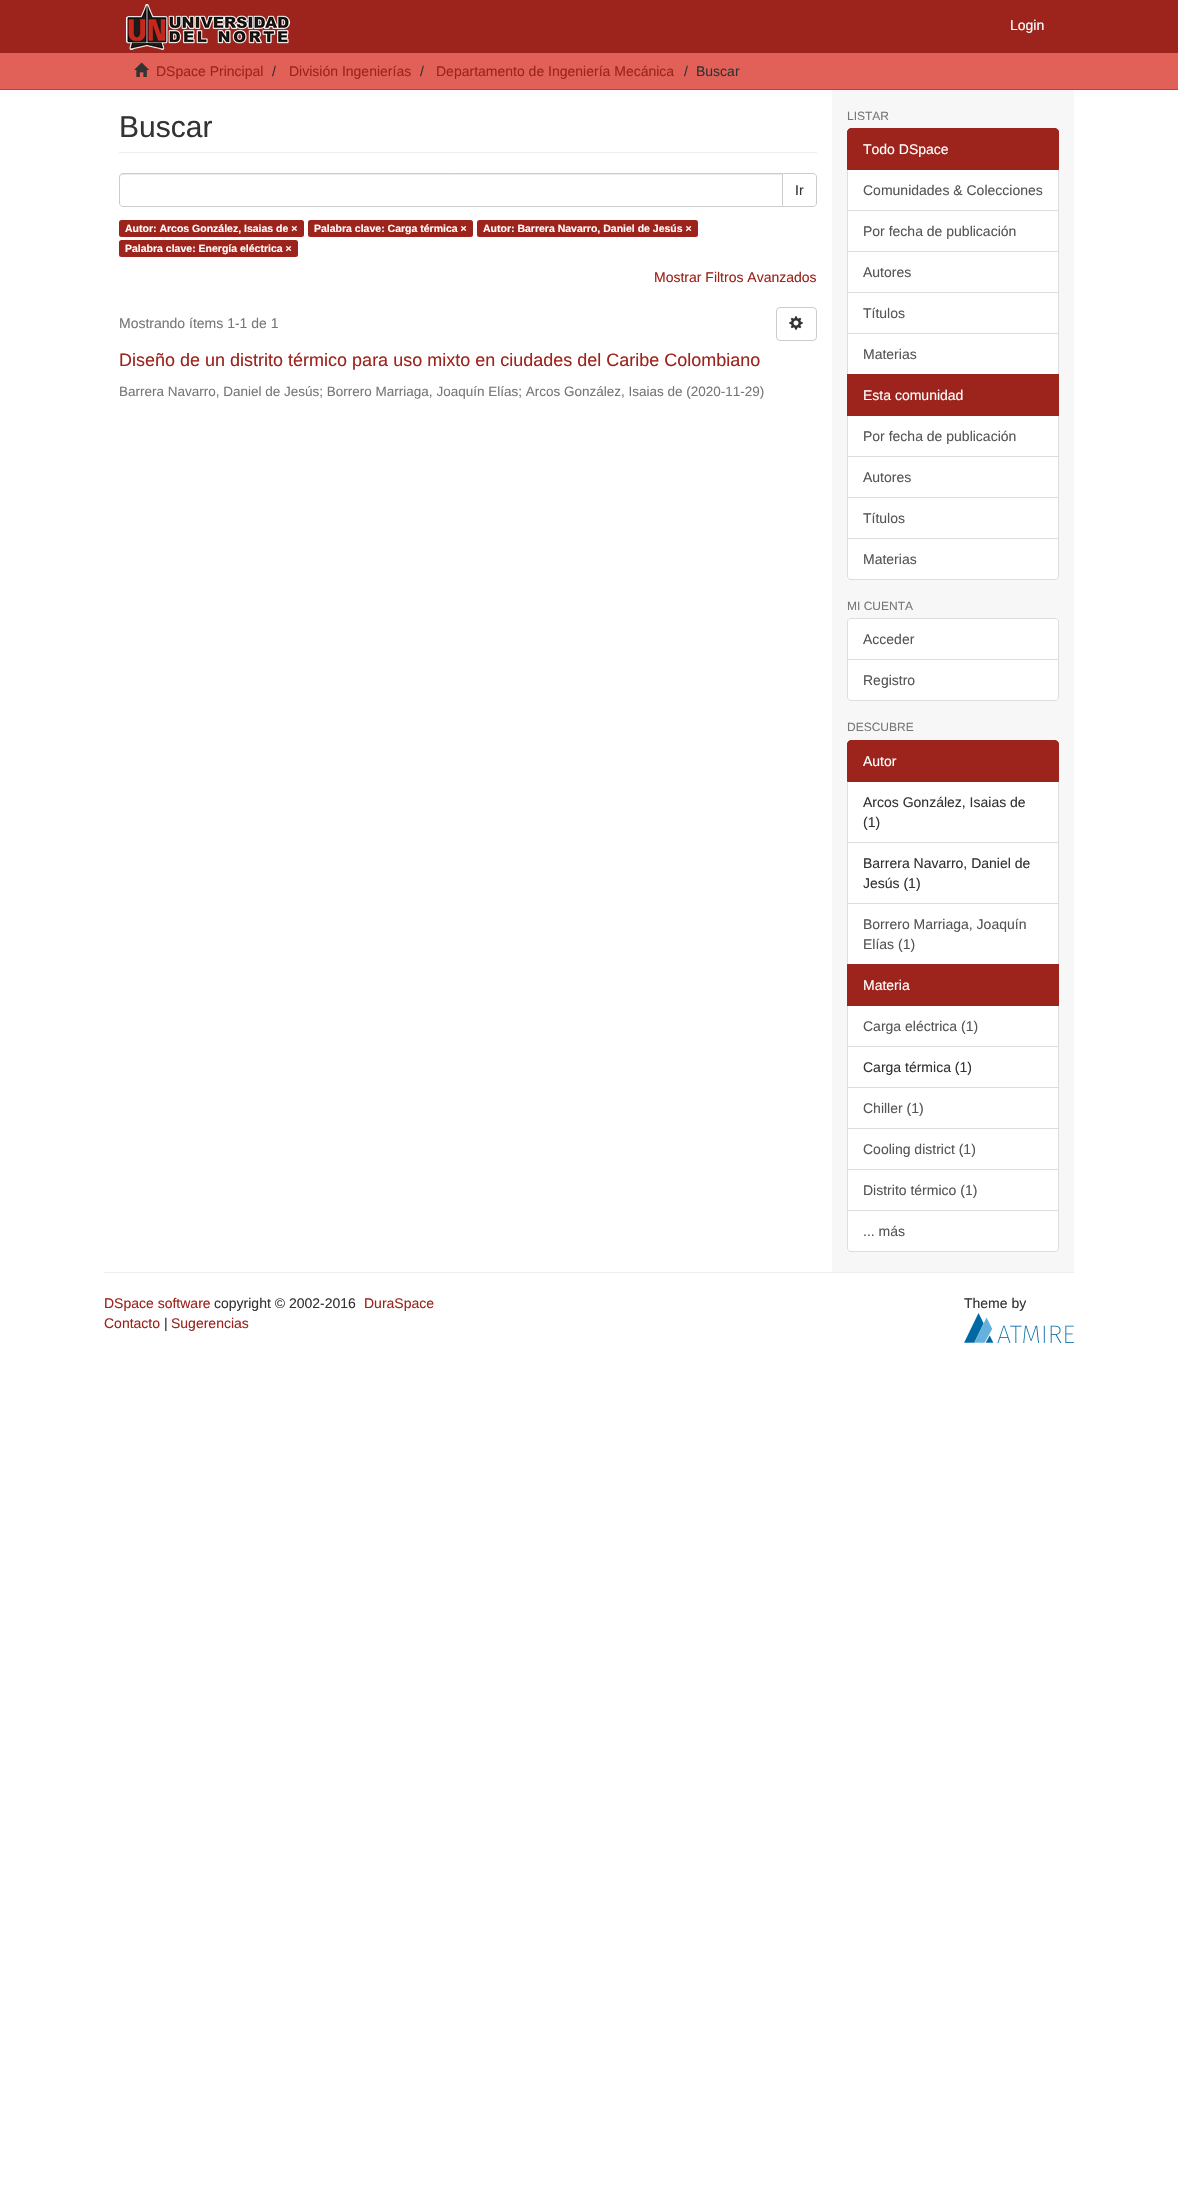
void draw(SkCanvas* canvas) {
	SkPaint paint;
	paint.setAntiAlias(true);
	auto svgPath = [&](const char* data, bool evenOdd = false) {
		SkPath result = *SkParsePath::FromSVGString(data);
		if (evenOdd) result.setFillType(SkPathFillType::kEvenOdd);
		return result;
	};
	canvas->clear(0xffffffff);
	paint.setColor(0xff9d241c);
	canvas->drawRect(SkRect::MakeXYWH(0, 0, 1178, 53), paint);
	canvas->drawImageRect(SkImages::DeferredFromEncodedData(SkData::MakeFromFileName("img1.png")), SkRect::MakeXYWH(126, 4, 164, 46), SkSamplingOptions());
	SkFont f1(fontMgr->matchFamilyStyle("Liberation Sans", SkFontStyle::Normal()), 14);
	f1.setSubpixel(true);
	paint.setColor(0xffffffff);
	canvas->drawString("Login", 1010, 30, f1, paint);
	paint.setColor(0xffe16057);
	canvas->drawRect(SkRect::MakeXYWH(0, 53, 1178, 36), paint);
	paint.setColor(0xffd9372c);
	canvas->drawRect(SkRect::MakeXYWH(0, 89, 1178, 1), paint);
	canvas->drawImageRect(SkImages::DeferredFromEncodedData(SkData::MakeFromFileName("img2.png")), SkRect::MakeXYWH(134, 62, 15, 15), SkSamplingOptions());
	paint.setColor(0xff9d241c);
	canvas->drawString("DSpace Principal", 156, 76, f1, paint);
	paint.setColor(0xff333333);
	canvas->drawString("/", 272, 76, f1, paint);
	paint.setColor(0xff9d241c);
	canvas->drawString("División Ingenierías", 289, 76, f1, paint);
	paint.setColor(0xff333333);
	canvas->drawString("/", 420, 76, f1, paint);
	paint.setColor(0xff9d241c);
	canvas->drawString("Departamento de Ingeniería Mecánica", 436, 76, f1, paint);
	paint.setColor(0xff333333);
	canvas->drawString("/", 684, 76, f1, paint);
	canvas->drawString("Buscar", 696, 76, f1, paint);
	paint.setColor(0xfff7f7f7);
	canvas->drawRect(SkRect::MakeXYWH(832, 90, 242, 1182), paint);
	paint.setColor(0xffeeeeee);
	canvas->drawRect(SkRect::MakeXYWH(119, 152, 698, 1), paint);
	SkFont f2(fontMgr->matchFamilyStyle("Liberation Sans", SkFontStyle::Normal()), 30);
	f2.setSubpixel(true);
	paint.setColor(0xff333333);
	canvas->drawString("Buscar", 119, 137, f2, paint);
	paint.setStroke(true);
	paint.setStrokeWidth(1);
	paint.setColor(0xffcccccc);
	canvas->drawPath(svgPath("M782.5 173.5H813C815 173.5 816.5 175 816.5 177V203C816.5 205 815 206.5 813 206.5H782.5Z"), paint);
	paint.setStroke(false);
	paint.setColor(0xffffffff);
	canvas->drawPath(svgPath("M123 173H783V207H123C121 207 119 205 119 203V177C119 175 121 173 123 173Z"), paint);
	paint.setColor(0xffececec);
	canvas->drawPath(svgPath("M123 175H782V174H123C121 174 120 175 120 177V178C120 176 121 175 123 175Z"), paint);
	paint.setStroke(true);
	paint.setColor(0xffcccccc);
	canvas->drawPath(svgPath("M123 173.5H782.5V206.5H123C121 206.5 119.5 205 119.5 203V177C119.5 175 121 173.5 123 173.5Z"), paint);
	paint.setStroke(false);
	paint.setColor(0xff333333);
	canvas->drawString("Ir", 795, 195, f1, paint);
	paint.setColor(0xff9d241c);
	canvas->drawRoundRect(SkRect::MakeXYWH(119, 220, 185, 17), 2.5, 2.5, paint);
	SkFont f3(fontMgr->matchFamilyStyle("Liberation Sans", SkFontStyle::Bold()), 10.5);
	f3.setSubpixel(true);
	paint.setColor(0xffffffff);
	canvas->drawString("Autor: Arcos González, Isaias de ×", 125, 232, f3, paint);
	paint.setColor(0xff9d241c);
	canvas->drawRoundRect(SkRect::MakeXYWH(308, 220, 165, 17), 2.5, 2.5, paint);
	paint.setColor(0xffffffff);
	canvas->drawString("Palabra clave: Carga térmica ×", 314, 232, f3, paint);
	paint.setColor(0xff9d241c);
	canvas->drawRoundRect(SkRect::MakeXYWH(477, 220, 221, 17), 2.5, 2.5, paint);
	paint.setColor(0xffffffff);
	canvas->drawString("Autor: Barrera Navarro, Daniel de Jesús ×", 483, 232, f3, paint);
	paint.setColor(0xff9d241c);
	canvas->drawRoundRect(SkRect::MakeXYWH(119, 240, 179, 17), 2.5, 2.5, paint);
	paint.setColor(0xffffffff);
	canvas->drawString("Palabra clave: Energía eléctrica ×", 125, 252, f3, paint);
	paint.setColor(0xff9d241c);
	canvas->drawString("Mostrar Filtros Avanzados", 654, 282, f1, paint);
	paint.setColor(0xff777777);
	canvas->drawString("Mostrando ítems 1-1 de 1", 119, 328, f1, paint);
	paint.setStroke(true);
	paint.setColor(0xffcccccc);
	canvas->drawRoundRect(SkRect::MakeXYWH(776.5, 307.5, 40, 33), 3.5, 3.5, paint);
	canvas->drawImageRect(SkImages::DeferredFromEncodedData(SkData::MakeFromFileName("img3.png")), SkRect::MakeXYWH(789, 316, 14, 14), SkSamplingOptions());
	SkFont f4(fontMgr->matchFamilyStyle("Liberation Sans", SkFontStyle::Normal()), 18);
	f4.setSubpixel(true);
	paint.setStroke(false);
	paint.setColor(0xff9d241c);
	canvas->drawString("Diseño de un distrito térmico para uso mixto en ciudades del Caribe Colombiano", 119, 366, f4, paint);
	SkFont f5(fontMgr->matchFamilyStyle("Liberation Sans", SkFontStyle::Normal()), 13.5);
	f5.setSubpixel(true);
	paint.setColor(0xff777777);
	canvas->drawString("Barrera Navarro, Daniel de Jesús; Borrero Marriaga, Joaquín Elías; Arcos González, Isaias de (2020-11-29)", 119, 396, f5, paint);
	SkFont f6(fontMgr->matchFamilyStyle("Liberation Sans", SkFontStyle::Normal()), 12);
	f6.setSubpixel(true);
	canvas->drawString("LISTAR", 847, 120, f6, paint);
	paint.setColor(0xffffffff);
	canvas->drawRect(SkRect::MakeXYWH(847.5, 169.5, 211, 41), paint);
	paint.setStroke(true);
	paint.setColor(0xffdddddd);
	canvas->drawRect(SkRect::MakeXYWH(847.5, 169.5, 211, 41), paint);
	paint.setStroke(false);
	paint.setColor(0xff9d241c);
	canvas->drawPath(svgPath("M851 128.5H1055C1057 128.5 1058.5 130 1058.5 132V169.5H847.5V132C847.5 130 849 128.5 851 128.5Z"), paint);
	paint.setStroke(true);
	canvas->drawPath(svgPath("M851 128.5H1055C1057 128.5 1058.5 130 1058.5 132V169.5H847.5V132C847.5 130 849 128.5 851 128.5Z"), paint);
	paint.setStroke(false);
	paint.setColor(0xffffffff);
	canvas->drawString("Todo DSpace", 863, 154, f1, paint);
	paint.setColor(0xff555555);
	canvas->drawString("Comunidades & Colecciones", 863, 195, f1, paint);
	paint.setColor(0xffffffff);
	canvas->drawRect(SkRect::MakeXYWH(847.5, 210.5, 211, 41), paint);
	paint.setStroke(true);
	paint.setColor(0xffdddddd);
	canvas->drawRect(SkRect::MakeXYWH(847.5, 210.5, 211, 41), paint);
	paint.setStroke(false);
	paint.setColor(0xff555555);
	canvas->drawString("Por fecha de publicación", 863, 236, f1, paint);
	paint.setColor(0xffffffff);
	canvas->drawRect(SkRect::MakeXYWH(847.5, 251.5, 211, 41), paint);
	paint.setStroke(true);
	paint.setColor(0xffdddddd);
	canvas->drawRect(SkRect::MakeXYWH(847.5, 251.5, 211, 41), paint);
	paint.setStroke(false);
	paint.setColor(0xff555555);
	canvas->drawString("Autores", 863, 277, f1, paint);
	paint.setColor(0xffffffff);
	canvas->drawRect(SkRect::MakeXYWH(847.5, 292.5, 211, 41), paint);
	paint.setStroke(true);
	paint.setColor(0xffdddddd);
	canvas->drawRect(SkRect::MakeXYWH(847.5, 292.5, 211, 41), paint);
	paint.setStroke(false);
	paint.setColor(0xff555555);
	canvas->drawString("Títulos", 863, 318, f1, paint);
	paint.setColor(0xffffffff);
	canvas->drawRect(SkRect::MakeXYWH(847.5, 333.5, 211, 41), paint);
	paint.setStroke(true);
	paint.setColor(0xffdddddd);
	canvas->drawRect(SkRect::MakeXYWH(847.5, 333.5, 211, 41), paint);
	paint.setStroke(false);
	paint.setColor(0xff555555);
	canvas->drawString("Materias", 863, 359, f1, paint);
	paint.setColor(0xffffffff);
	canvas->drawRect(SkRect::MakeXYWH(847.5, 415.5, 211, 41), paint);
	paint.setStroke(true);
	paint.setColor(0xffdddddd);
	canvas->drawRect(SkRect::MakeXYWH(847.5, 415.5, 211, 41), paint);
	paint.setStroke(false);
	paint.setColor(0xff9d241c);
	canvas->drawRect(SkRect::MakeXYWH(847, 374, 212, 42), paint);
	paint.setColor(0xffffffff);
	canvas->drawString("Esta comunidad", 863, 400, f1, paint);
	paint.setColor(0xff555555);
	canvas->drawString("Por fecha de publicación", 863, 441, f1, paint);
	paint.setColor(0xffffffff);
	canvas->drawRect(SkRect::MakeXYWH(847.5, 456.5, 211, 41), paint);
	paint.setStroke(true);
	paint.setColor(0xffdddddd);
	canvas->drawRect(SkRect::MakeXYWH(847.5, 456.5, 211, 41), paint);
	paint.setStroke(false);
	paint.setColor(0xff555555);
	canvas->drawString("Autores", 863, 482, f1, paint);
	paint.setColor(0xffffffff);
	canvas->drawRect(SkRect::MakeXYWH(847.5, 497.5, 211, 41), paint);
	paint.setStroke(true);
	paint.setColor(0xffdddddd);
	canvas->drawRect(SkRect::MakeXYWH(847.5, 497.5, 211, 41), paint);
	paint.setStroke(false);
	paint.setColor(0xff555555);
	canvas->drawString("Títulos", 863, 523, f1, paint);
	paint.setColor(0xffffffff);
	canvas->drawPath(svgPath("M847.5 538.5H1058.5V576C1058.5 578 1057 579.5 1055 579.5H851C849 579.5 847.5 578 847.5 576Z"), paint);
	paint.setStroke(true);
	paint.setColor(0xffdddddd);
	canvas->drawPath(svgPath("M847.5 538.5H1058.5V576C1058.5 578 1057 579.5 1055 579.5H851C849 579.5 847.5 578 847.5 576Z"), paint);
	paint.setStroke(false);
	paint.setColor(0xff555555);
	canvas->drawString("Materias", 863, 564, f1, paint);
	paint.setColor(0xff777777);
	canvas->drawString("MI CUENTA", 847, 610, f6, paint);
	paint.setColor(0xffffffff);
	canvas->drawPath(svgPath("M851 618.5H1055C1057 618.5 1058.5 620 1058.5 622V659.5H847.5V622C847.5 620 849 618.5 851 618.5Z"), paint);
	paint.setStroke(true);
	paint.setColor(0xffdddddd);
	canvas->drawPath(svgPath("M851 618.5H1055C1057 618.5 1058.5 620 1058.5 622V659.5H847.5V622C847.5 620 849 618.5 851 618.5Z"), paint);
	paint.setStroke(false);
	paint.setColor(0xff555555);
	canvas->drawString("Acceder", 863, 644, f1, paint);
	paint.setColor(0xffffffff);
	canvas->drawPath(svgPath("M847.5 659.5H1058.5V697C1058.5 699 1057 700.5 1055 700.5H851C849 700.5 847.5 699 847.5 697Z"), paint);
	paint.setStroke(true);
	paint.setColor(0xffdddddd);
	canvas->drawPath(svgPath("M847.5 659.5H1058.5V697C1058.5 699 1057 700.5 1055 700.5H851C849 700.5 847.5 699 847.5 697Z"), paint);
	paint.setStroke(false);
	paint.setColor(0xff555555);
	canvas->drawString("Registro", 863, 685, f1, paint);
	paint.setColor(0xff777777);
	canvas->drawString("DESCUBRE", 847, 731, f6, paint);
	paint.setColor(0xffffffff);
	canvas->drawRect(SkRect::MakeXYWH(847.5, 781.5, 211, 61), paint);
	paint.setStroke(true);
	paint.setColor(0xffdddddd);
	canvas->drawRect(SkRect::MakeXYWH(847.5, 781.5, 211, 61), paint);
	paint.setStroke(false);
	paint.setColor(0xff9d241c);
	canvas->drawPath(svgPath("M851 740.5H1055C1057 740.5 1058.5 742 1058.5 744V781.5H847.5V744C847.5 742 849 740.5 851 740.5Z"), paint);
	paint.setStroke(true);
	canvas->drawPath(svgPath("M851 740.5H1055C1057 740.5 1058.5 742 1058.5 744V781.5H847.5V744C847.5 742 849 740.5 851 740.5Z"), paint);
	paint.setStroke(false);
	paint.setColor(0xffffffff);
	canvas->drawString("Autor", 863, 766, f1, paint);
	paint.setColor(0xff333333);
	canvas->drawString("Arcos González, Isaias de", 863, 807, f1, paint);
	canvas->drawString("(1)", 863, 827, f1, paint);
	paint.setColor(0xffffffff);
	canvas->drawRect(SkRect::MakeXYWH(847.5, 842.5, 211, 61), paint);
	paint.setStroke(true);
	paint.setColor(0xffdddddd);
	canvas->drawRect(SkRect::MakeXYWH(847.5, 842.5, 211, 61), paint);
	paint.setStroke(false);
	paint.setColor(0xff333333);
	canvas->drawString("Barrera Navarro, Daniel de", 863, 868, f1, paint);
	canvas->drawString("Jesús (1)", 863, 888, f1, paint);
	paint.setColor(0xffffffff);
	canvas->drawRect(SkRect::MakeXYWH(847.5, 903.5, 211, 61), paint);
	paint.setStroke(true);
	paint.setColor(0xffdddddd);
	canvas->drawRect(SkRect::MakeXYWH(847.5, 903.5, 211, 61), paint);
	paint.setStroke(false);
	paint.setColor(0xff555555);
	canvas->drawString("Borrero Marriaga, Joaquín", 863, 929, f1, paint);
	canvas->drawString("Elías (1)", 863, 949, f1, paint);
	paint.setColor(0xffffffff);
	canvas->drawRect(SkRect::MakeXYWH(847.5, 1005.5, 211, 41), paint);
	paint.setStroke(true);
	paint.setColor(0xffdddddd);
	canvas->drawRect(SkRect::MakeXYWH(847.5, 1005.5, 211, 41), paint);
	paint.setStroke(false);
	paint.setColor(0xff9d241c);
	canvas->drawRect(SkRect::MakeXYWH(847, 964, 212, 42), paint);
	paint.setColor(0xffffffff);
	canvas->drawString("Materia", 863, 990, f1, paint);
	paint.setColor(0xff555555);
	canvas->drawString("Carga eléctrica (1)", 863, 1031, f1, paint);
	paint.setColor(0xffffffff);
	canvas->drawRect(SkRect::MakeXYWH(847.5, 1046.5, 211, 41), paint);
	paint.setStroke(true);
	paint.setColor(0xffdddddd);
	canvas->drawRect(SkRect::MakeXYWH(847.5, 1046.5, 211, 41), paint);
	paint.setStroke(false);
	paint.setColor(0xff333333);
	canvas->drawString("Carga térmica (1)", 863, 1072, f1, paint);
	paint.setColor(0xffffffff);
	canvas->drawRect(SkRect::MakeXYWH(847.5, 1087.5, 211, 41), paint);
	paint.setStroke(true);
	paint.setColor(0xffdddddd);
	canvas->drawRect(SkRect::MakeXYWH(847.5, 1087.5, 211, 41), paint);
	paint.setStroke(false);
	paint.setColor(0xff555555);
	canvas->drawString("Chiller (1)", 863, 1113, f1, paint);
	paint.setColor(0xffffffff);
	canvas->drawRect(SkRect::MakeXYWH(847.5, 1128.5, 211, 41), paint);
	paint.setStroke(true);
	paint.setColor(0xffdddddd);
	canvas->drawRect(SkRect::MakeXYWH(847.5, 1128.5, 211, 41), paint);
	paint.setStroke(false);
	paint.setColor(0xff555555);
	canvas->drawString("Cooling district (1)", 863, 1154, f1, paint);
	paint.setColor(0xffffffff);
	canvas->drawRect(SkRect::MakeXYWH(847.5, 1169.5, 211, 41), paint);
	paint.setStroke(true);
	paint.setColor(0xffdddddd);
	canvas->drawRect(SkRect::MakeXYWH(847.5, 1169.5, 211, 41), paint);
	paint.setStroke(false);
	paint.setColor(0xff555555);
	canvas->drawString("Distrito térmico (1)", 863, 1195, f1, paint);
	paint.setColor(0xffffffff);
	canvas->drawPath(svgPath("M847.5 1210.5H1058.5V1248C1058.5 1250 1057 1251.5 1055 1251.5H851C849 1251.5 847.5 1250 847.5 1248Z"), paint);
	paint.setStroke(true);
	paint.setColor(0xffdddddd);
	canvas->drawPath(svgPath("M847.5 1210.5H1058.5V1248C1058.5 1250 1057 1251.5 1055 1251.5H851C849 1251.5 847.5 1250 847.5 1248Z"), paint);
	paint.setStroke(false);
	paint.setColor(0xff555555);
	canvas->drawString("... más", 863, 1236, f1, paint);
	paint.setColor(0xffeeeeee);
	canvas->drawRect(SkRect::MakeXYWH(104, 1272, 970, 1), paint);
	paint.setColor(0xff9d241c);
	canvas->drawString("DSpace software", 104, 1308, f1, paint);
	paint.setColor(0xff333333);
	canvas->drawString("copyright © 2002-2016", 214, 1308, f1, paint);
	paint.setColor(0xff9d241c);
	canvas->drawString("DuraSpace", 364, 1308, f1, paint);
	canvas->drawString("Contacto", 104, 1328, f1, paint);
	paint.setColor(0xff333333);
	canvas->drawString("|", 164, 1328, f1, paint);
	paint.setColor(0xff9d241c);
	canvas->drawString("Sugerencias", 171, 1328, f1, paint);
	paint.setColor(0xff333333);
	canvas->drawString("Theme by", 964, 1308, f1, paint);
	canvas->drawImageRect(SkImages::DeferredFromEncodedData(SkData::MakeFromFileName("img4.png")), SkRect::MakeXYWH(964, 1313, 110, 30), SkSamplingOptions());
}
